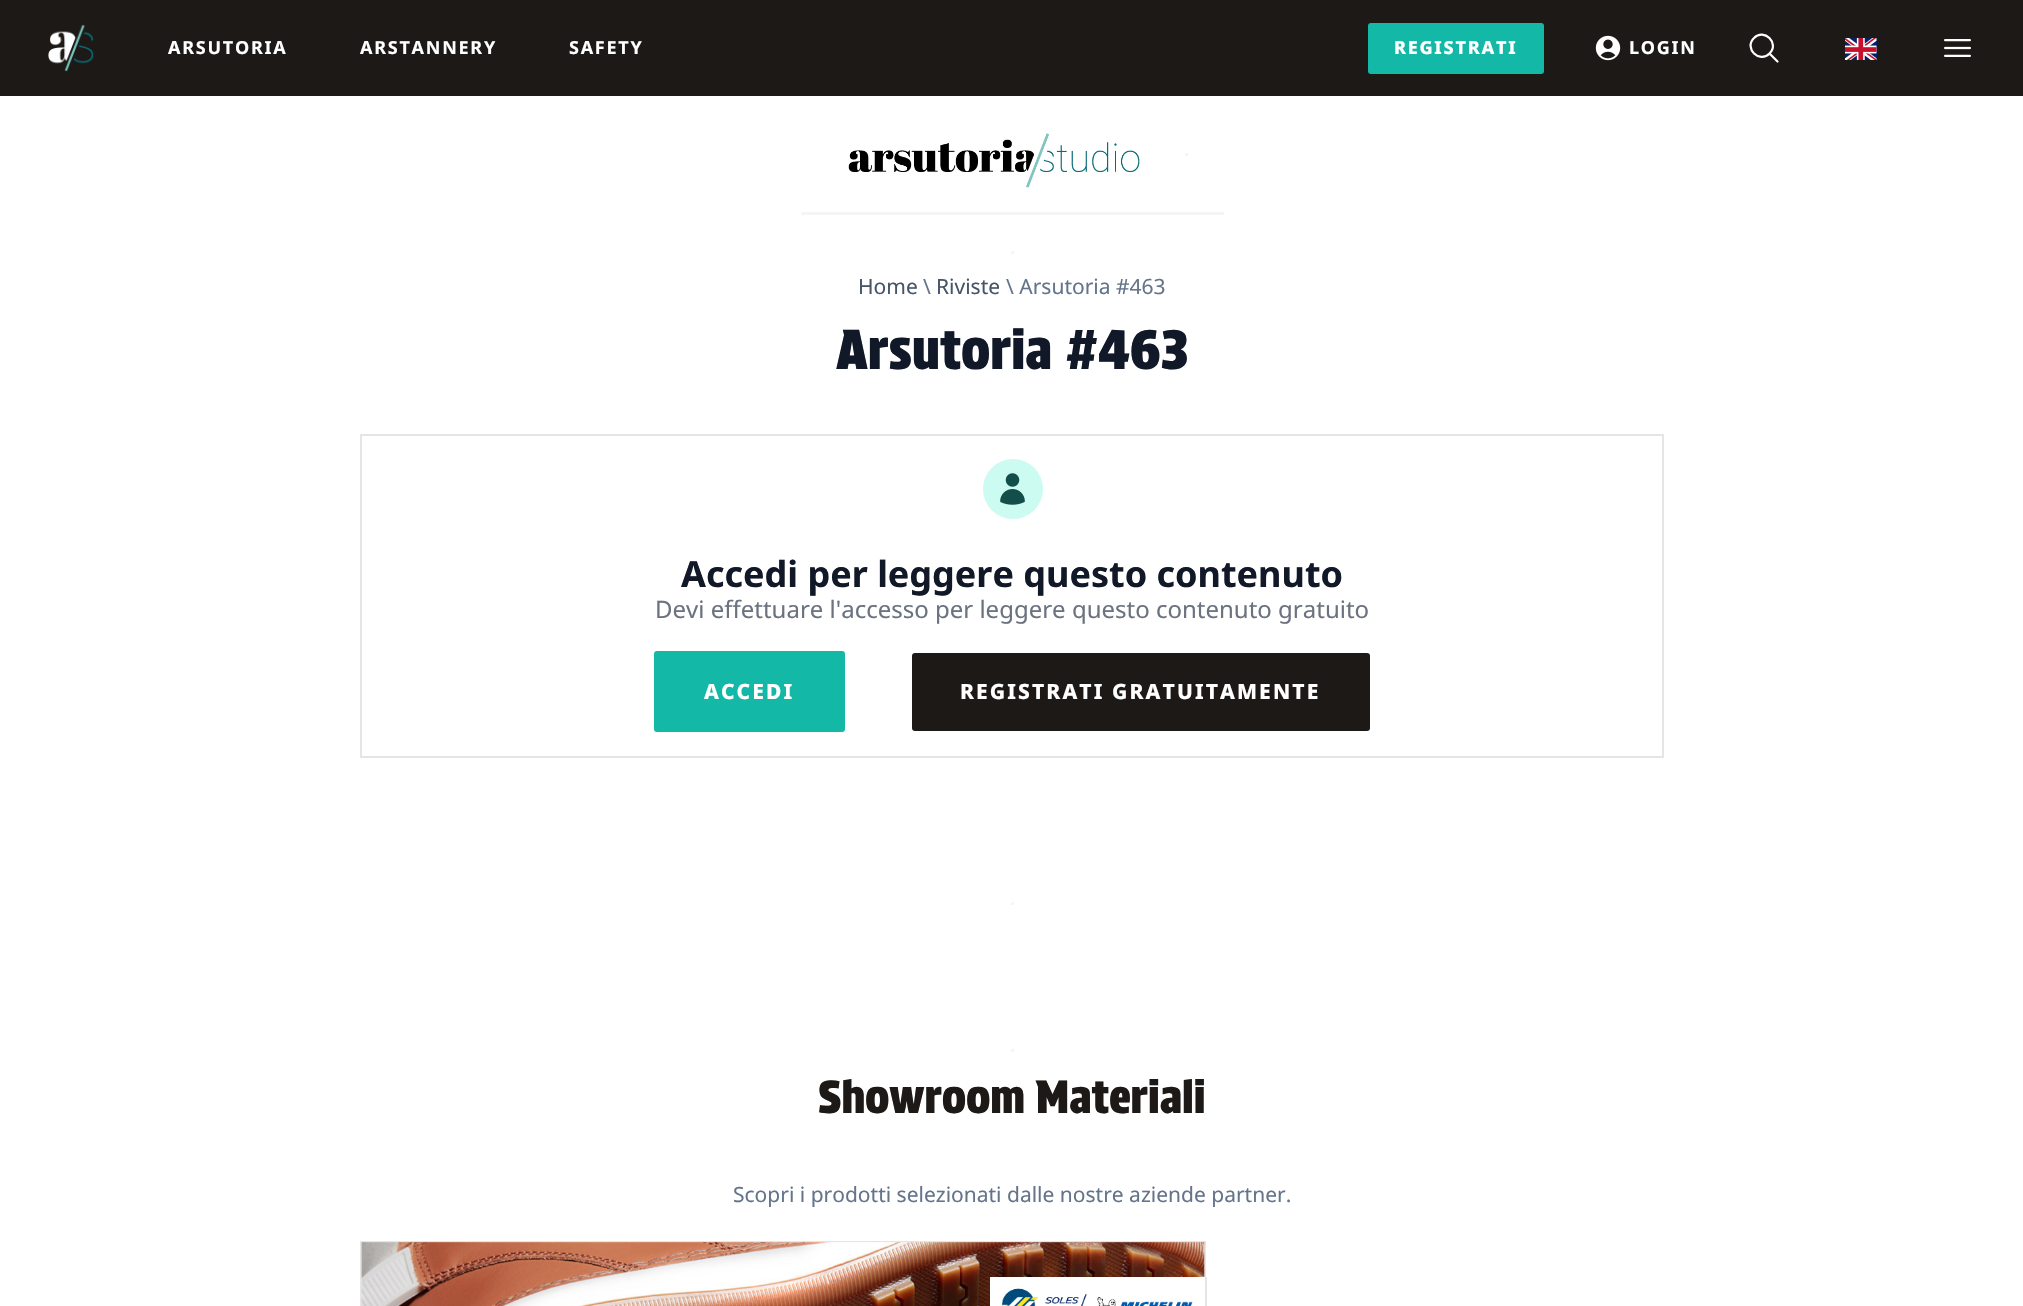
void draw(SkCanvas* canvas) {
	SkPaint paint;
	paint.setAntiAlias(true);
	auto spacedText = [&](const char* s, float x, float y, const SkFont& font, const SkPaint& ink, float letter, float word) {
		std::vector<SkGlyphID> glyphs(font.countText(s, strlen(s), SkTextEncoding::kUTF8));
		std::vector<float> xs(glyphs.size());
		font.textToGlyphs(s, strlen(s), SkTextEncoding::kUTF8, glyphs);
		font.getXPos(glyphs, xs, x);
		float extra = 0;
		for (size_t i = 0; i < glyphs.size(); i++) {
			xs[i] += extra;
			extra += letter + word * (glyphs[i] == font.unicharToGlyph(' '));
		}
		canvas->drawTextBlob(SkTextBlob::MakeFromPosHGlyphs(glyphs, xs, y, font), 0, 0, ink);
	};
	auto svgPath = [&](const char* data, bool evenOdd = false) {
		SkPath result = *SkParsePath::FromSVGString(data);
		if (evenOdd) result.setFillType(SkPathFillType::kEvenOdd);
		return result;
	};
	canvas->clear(0xffffffff);
	paint.setColor(0xff1c1917);
	canvas->drawRect(SkRect::MakeXYWH(0, 0, 2023, 96), paint);
	canvas->drawImageRect(SkImages::DeferredFromEncodedData(SkData::MakeFromFileName("img1.png")), SkRect::MakeXYWH(48, 25, 46, 47), SkSamplingOptions());
	SkFont f1(fontMgr->matchFamilyStyle("Noto Sans", SkFontStyle::Bold()), 18);
	f1.setSubpixel(true);
	paint.setColor(0xffffffff);
	spacedText("ARSUTORIA", 168, 54, f1, paint, 1.75, 0);
	spacedText("ARSTANNERY", 360, 54, f1, paint, 1.75, 0);
	spacedText("SAFETY", 569, 54, f1, paint, 1.75, 0);
	paint.setColor(0xff14b8a6);
	canvas->drawRoundRect(SkRect::MakeXYWH(1369, 24, 174, 49), 2, 2, paint);
	paint.setStroke(true);
	paint.setStrokeWidth(2);
	canvas->drawRoundRect(SkRect::MakeXYWH(1369, 24, 174, 49), 2, 2, paint);
	SkFont f2(fontMgr->matchFamilyStyle("Noto Sans", SkFontStyle(800, SkFontStyle::kNormal_Width, SkFontStyle::kUpright_Slant)), 18);
	f2.setSubpixel(true);
	paint.setStroke(false);
	paint.setColor(0xffffffff);
	spacedText("REGISTRATI", 1394, 54, f2, paint, 1.75, 0);
	canvas->drawImageRect(SkImages::DeferredFromEncodedData(SkData::MakeFromFileName("img2.png")), SkRect::MakeXYWH(1595, 35, 26, 26), SkSamplingOptions());
	spacedText("LOGIN", 1629, 54, f1, paint, 1.75, 0);
	paint.setStroke(true);
	paint.setStrokeWidth(2.2);
	paint.setStrokeCap(SkPaint::kRound_Cap);
	paint.setStrokeJoin(SkPaint::kRound_Join);
	canvas->drawPath(svgPath("M1777.5 61.5L1769.5 53.5M1769.5 53.5C1780 43.5 1764 27.5 1754 38C1743.5 48 1759.5 64 1769.5 53.5Z"), paint);
	canvas->drawImageRect(SkImages::DeferredFromEncodedData(SkData::MakeFromFileName("img3.png")), SkRect::MakeXYWH(1845, 38, 32, 22), SkSamplingOptions());
	canvas->drawImageRect(SkImages::DeferredFromEncodedData(SkData::MakeFromFileName("img4.png")), SkRect::MakeXYWH(1944, 39, 27, 18), SkSamplingOptions());
	paint.setStroke(false);
	paint.setColor(0xfff5f5f4);
	canvas->drawRect(SkRect::MakeXYWH(801, 212, 423, 3), paint);
	canvas->drawImageRect(SkImages::DeferredFromEncodedData(SkData::MakeFromFileName("img5.png")), SkRect::MakeXYWH(848, 133, 292, 55), SkSamplingOptions());
	canvas->drawRect(SkRect::MakeXYWH(1185, 153, 3, 3), paint);
	canvas->drawRect(SkRect::MakeXYWH(1011, 251, 3, 3), paint);
	SkFont f3(fontMgr->matchFamilyStyle("Noto Sans", SkFontStyle::Normal()), 21);
	f3.setSubpixel(true);
	paint.setColor(0xff475569);
	canvas->drawString("Home", 858, 294, f3, paint);
	paint.setColor(0xff64748b);
	canvas->drawString("\\", 923, 294, f3, paint);
	paint.setColor(0xff475569);
	canvas->drawString("Riviste", 936, 294, f3, paint);
	paint.setColor(0xff64748b);
	canvas->drawString("\\ Arsutoria #463", 1006, 294, f3, paint);
	SkFont f4(fontMgr->matchFamilyStyle("Protest Strike", SkFontStyle::Normal()), 54);
	f4.setSubpixel(true);
	paint.setColor(0xff111827);
	canvas->drawString("Arsutoria #463", 836, 369, f4, paint);
	paint.setStroke(true);
	paint.setStrokeWidth(2);
	paint.setStrokeCap(SkPaint::kButt_Cap);
	paint.setStrokeJoin(SkPaint::kMiter_Join);
	paint.setColor(0xffe7e5e4);
	canvas->drawRect(SkRect::MakeXYWH(361, 435, 1302, 322), paint);
	paint.setStroke(false);
	paint.setColor(0xffccfbf1);
	canvas->drawCircle(1013, 489, 30, paint);
	canvas->drawImageRect(SkImages::DeferredFromEncodedData(SkData::MakeFromFileName("img6.png")), SkRect::MakeXYWH(1000, 473, 25, 32), SkSamplingOptions());
	SkFont f5(fontMgr->matchFamilyStyle("Noto Sans", SkFontStyle::Bold()), 36);
	f5.setSubpixel(true);
	paint.setColor(0xff111827);
	canvas->drawString("Accedi per leggere questo contenuto", 681, 587, f5, paint);
	SkFont f6(fontMgr->matchFamilyStyle("Noto Sans", SkFontStyle::Normal()), 24);
	f6.setSubpixel(true);
	paint.setColor(0xff6b7280);
	canvas->drawString("Devi effettuare l'accesso per leggere questo contenuto gratuito", 655, 618, f6, paint);
	paint.setColor(0xff14b8a6);
	canvas->drawRoundRect(SkRect::MakeXYWH(655, 652, 189, 79), 2, 2, paint);
	paint.setStroke(true);
	canvas->drawRoundRect(SkRect::MakeXYWH(655, 652, 189, 79), 2, 2, paint);
	SkFont f7(fontMgr->matchFamilyStyle("Noto Sans", SkFontStyle(800, SkFontStyle::kNormal_Width, SkFontStyle::kUpright_Slant)), 21);
	f7.setSubpixel(true);
	paint.setStroke(false);
	paint.setColor(0xffffffff);
	spacedText("ACCEDI", 704, 699, f7, paint, 2.1, 0);
	paint.setColor(0xff1c1917);
	canvas->drawRoundRect(SkRect::MakeXYWH(912, 653, 458, 78), 3, 3, paint);
	paint.setColor(0xffffffff);
	spacedText("REGISTRATI GRATUITAMENTE", 960, 699, f7, paint, 2.1, 0);
	paint.setColor(0xfff5f5f4);
	canvas->drawRect(SkRect::MakeXYWH(1011, 902, 3, 3), paint);
	canvas->drawRect(SkRect::MakeXYWH(1011, 1049, 3, 3), paint);
	SkFont f8(fontMgr->matchFamilyStyle("Protest Strike", SkFontStyle::Normal()), 45);
	f8.setSubpixel(true);
	paint.setColor(0xff1c1917);
	canvas->drawString("Showroom Materiali", 818, 1113, f8, paint);
	paint.setColor(0xff64748b);
	canvas->drawString("Scopri i prodotti selezionati dalle nostre aziende partner.", 733, 1202, f3, paint);
	paint.setStroke(true);
	paint.setColor(0xffe7e5e4);
	canvas->drawRect(SkRect::MakeXYWH(361, 1242, 844, 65), paint);
	canvas->drawImageRect(SkImages::DeferredFromEncodedData(SkData::MakeFromFileName("img7.png")), SkRect::MakeXYWH(361, 1242, 844, 64), SkSamplingOptions());
	paint.setStroke(false);
	paint.setColor(0xffffffff);
	canvas->drawRect(SkRect::MakeXYWH(990, 1277, 215, 29), paint);
	paint.setColor(0xffe7e5e4);
	canvas->drawRect(SkRect::MakeXYWH(1206, 1277, 1, 29), paint);
	canvas->drawImageRect(SkImages::DeferredFromEncodedData(SkData::MakeFromFileName("img8.png")), SkRect::MakeXYWH(1002, 1288, 191, 18), SkSamplingOptions());
}
